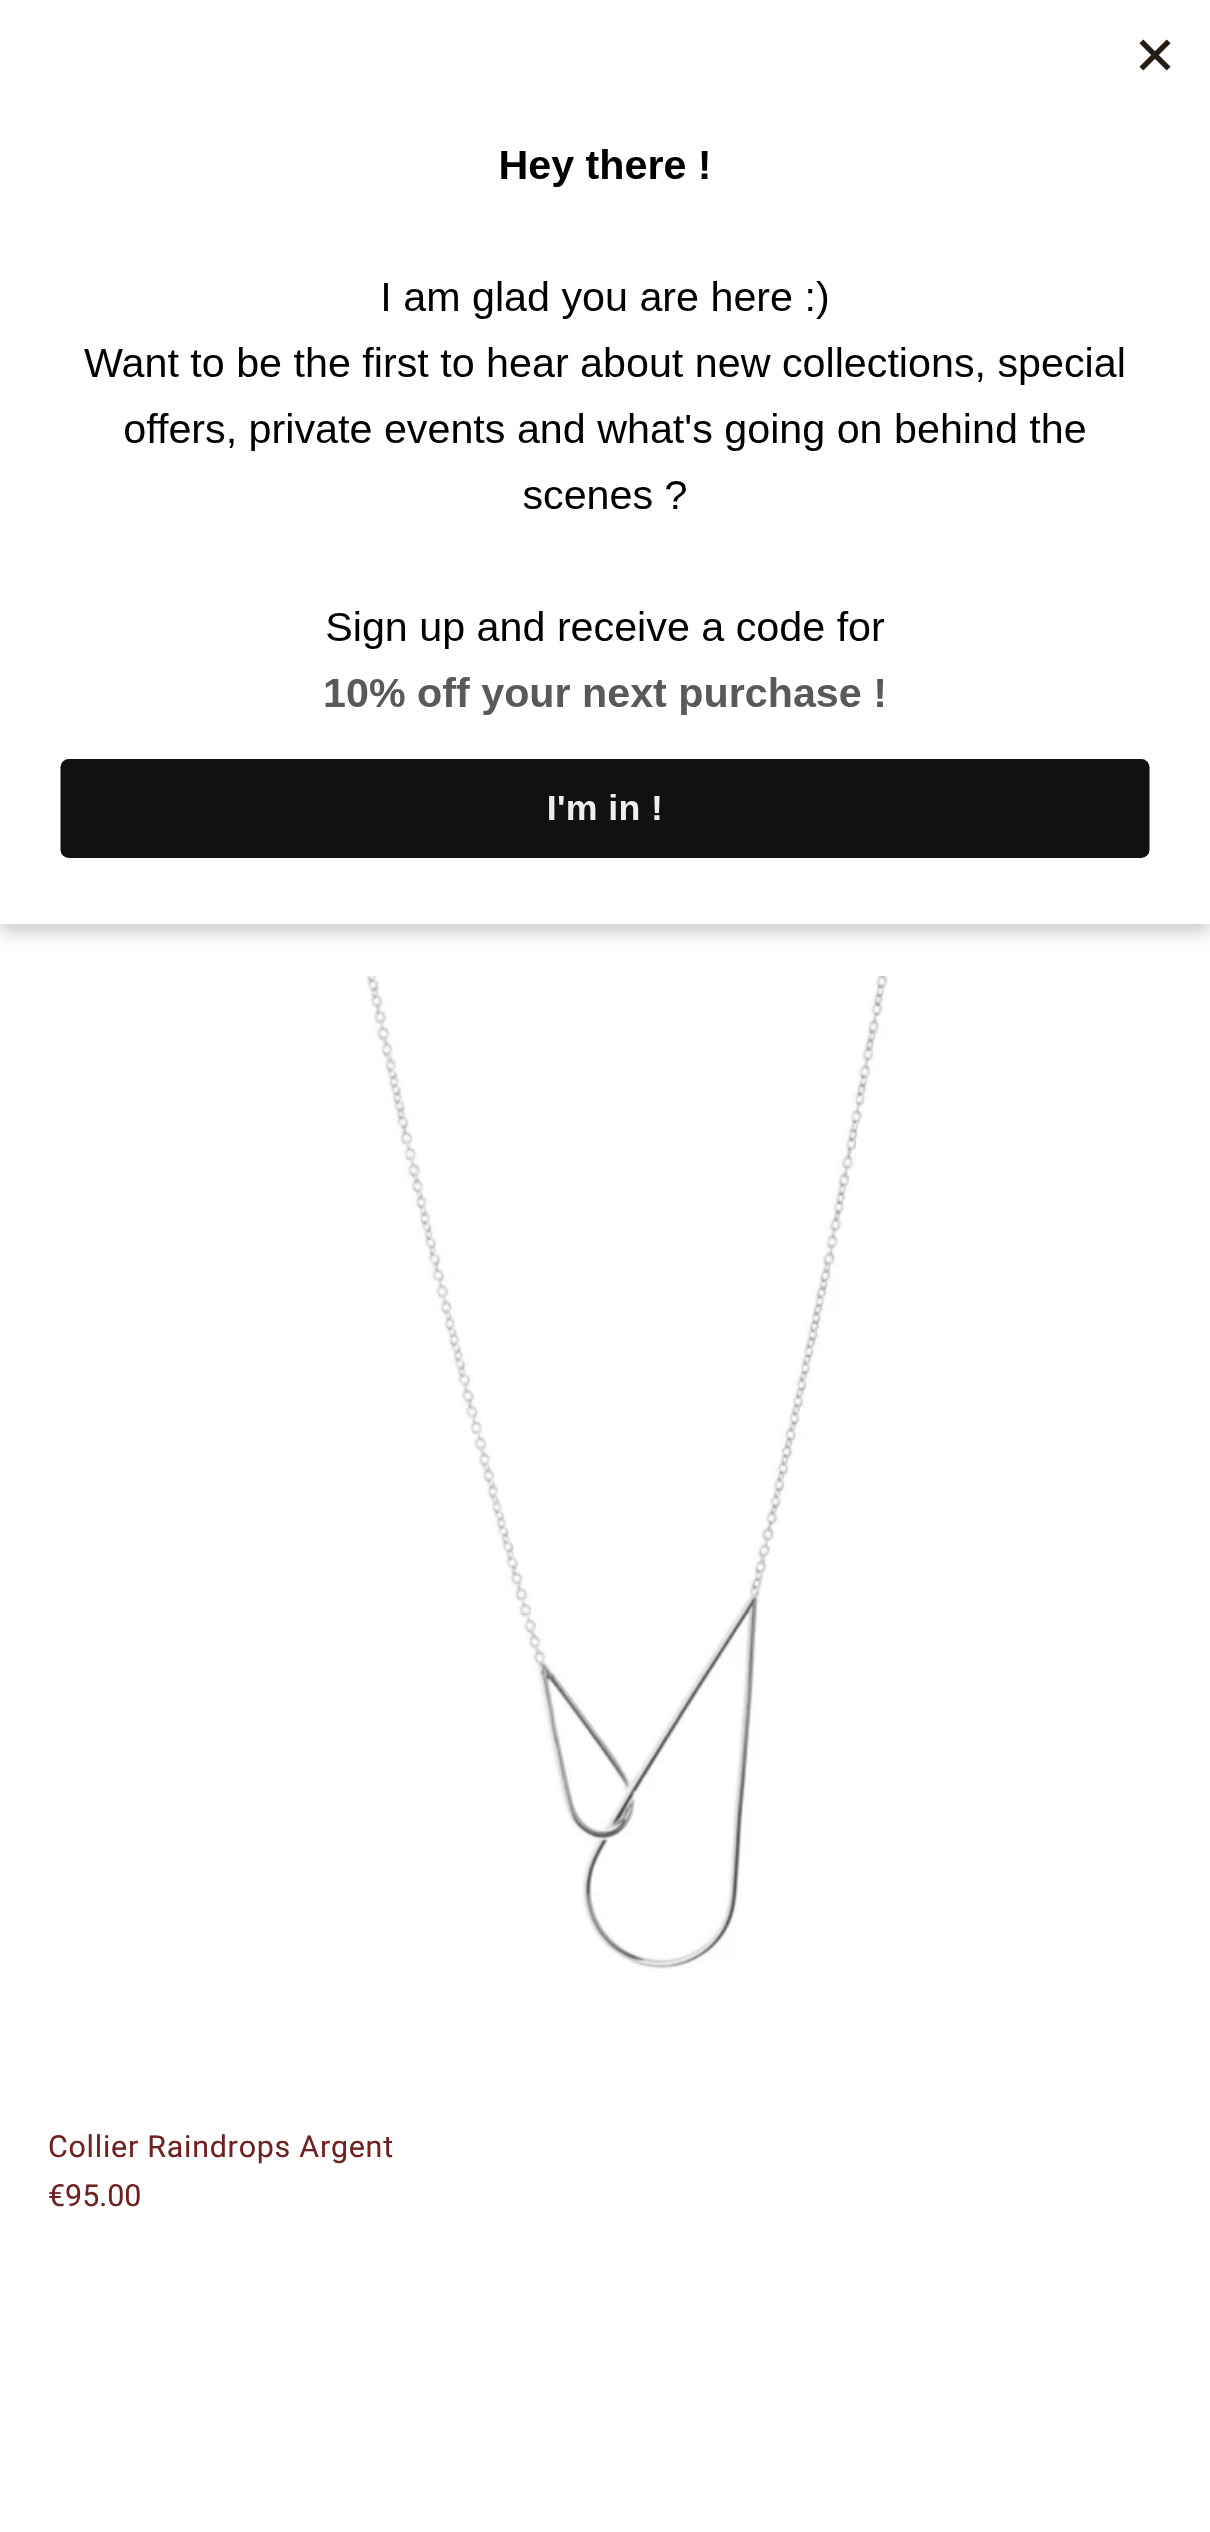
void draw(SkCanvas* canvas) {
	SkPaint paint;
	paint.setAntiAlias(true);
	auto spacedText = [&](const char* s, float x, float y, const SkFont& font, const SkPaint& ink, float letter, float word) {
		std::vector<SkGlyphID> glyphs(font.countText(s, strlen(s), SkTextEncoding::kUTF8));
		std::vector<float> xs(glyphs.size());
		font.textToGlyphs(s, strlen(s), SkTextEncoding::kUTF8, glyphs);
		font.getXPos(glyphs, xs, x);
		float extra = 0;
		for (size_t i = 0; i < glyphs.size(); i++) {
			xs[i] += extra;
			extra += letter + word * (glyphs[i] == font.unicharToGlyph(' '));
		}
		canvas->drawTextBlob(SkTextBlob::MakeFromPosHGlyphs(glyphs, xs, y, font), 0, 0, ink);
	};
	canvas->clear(0xffffffff);
	paint.setColor(0x33000000);
	paint.setMaskFilter(SkMaskFilter::MakeBlur(kNormal_SkBlurStyle, 8));
	canvas->drawRect(SkRect::MakeXYWH(0, 8, 1210, 924), paint);
	paint.setMaskFilter(nullptr);
	paint.setColor(0xffffffff);
	canvas->drawRect(SkRect::MakeXYWH(0, 0, 1210, 924), paint);
	canvas->drawImageRect(SkImages::DeferredFromEncodedData(SkData::MakeFromFileName("img1.png")), SkRect::MakeXYWH(60, 39, 1111, 819), SkSamplingOptions());
	canvas->drawImageRect(SkImages::DeferredFromEncodedData(SkData::MakeFromFileName("img2.png")), SkRect::MakeXYWH(366, 976, 522, 993), SkSamplingOptions());
	SkFont f1(fontMgr->matchFamilyStyle("Roboto", SkFontStyle::Normal()), 30.4);
	f1.setSubpixel(true);
	paint.setColor(0xff6e2222);
	spacedText("Collier Raindrops Argent", 48, 2157, f1, paint, 0.75, 0);
	canvas->drawString("€95.00", 48, 2206, f1, paint);
}
